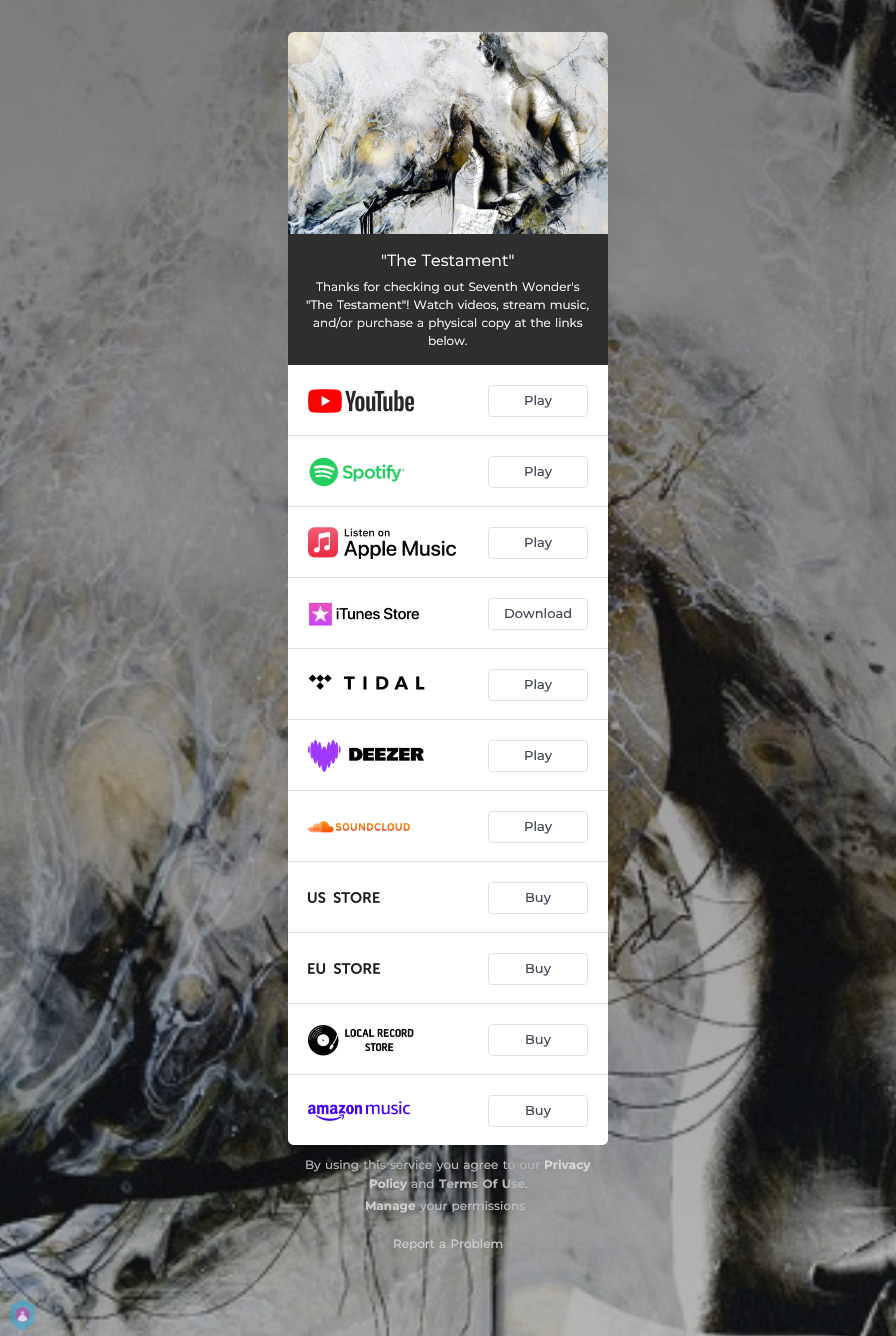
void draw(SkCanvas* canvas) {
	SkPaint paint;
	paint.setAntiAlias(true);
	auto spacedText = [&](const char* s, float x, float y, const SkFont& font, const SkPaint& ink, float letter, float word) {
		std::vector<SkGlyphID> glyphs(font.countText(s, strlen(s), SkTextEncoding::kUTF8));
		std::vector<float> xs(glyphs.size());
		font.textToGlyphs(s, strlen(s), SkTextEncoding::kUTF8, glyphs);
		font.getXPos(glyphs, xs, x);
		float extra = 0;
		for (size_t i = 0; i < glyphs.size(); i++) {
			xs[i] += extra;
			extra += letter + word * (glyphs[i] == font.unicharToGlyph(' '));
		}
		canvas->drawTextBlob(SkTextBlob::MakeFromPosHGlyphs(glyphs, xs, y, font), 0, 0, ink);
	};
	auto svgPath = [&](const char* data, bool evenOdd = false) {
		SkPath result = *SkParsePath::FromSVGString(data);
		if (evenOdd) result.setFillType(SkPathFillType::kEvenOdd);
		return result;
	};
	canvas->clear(0xffffffff);
	canvas->drawImageRect(SkImages::DeferredFromEncodedData(SkData::MakeFromFileName("img1.png")), SkRect::MakeXYWH(0, 0, 896, 1336), SkSamplingOptions());
	canvas->drawImageRect(SkImages::DeferredFromEncodedData(SkData::MakeFromFileName("img2.png")), SkRect::MakeXYWH(288, 32, 320, 202), SkSamplingOptions());
	paint.setColor(0xff2e2e2e);
	canvas->drawRect(SkRect::MakeXYWH(288, 234, 320, 131), paint);
	SkFont f1(fontMgr->matchFamilyStyle("Montserrat", SkFontStyle::Normal()), 16);
	f1.setSubpixel(true);
	paint.setColor(0xffffffff);
	spacedText("\"The Testament\"", 381, 266, f1, paint, 0, 1);
	SkFont f2(fontMgr->matchFamilyStyle("Montserrat", SkFontStyle::Normal()), 12);
	f2.setSubpixel(true);
	spacedText("Thanks for checking out Seventh Wonder's", 316, 291, f2, paint, 0, 1);
	spacedText("\"The Testament\"! Watch videos, stream music,", 306, 309, f2, paint, 0, 1);
	spacedText("and/or purchase a physical copy at the links", 313, 327, f2, paint, 0, 1);
	canvas->drawString("below.", 428, 345, f2, paint);
	canvas->drawPath(svgPath("M288 365H608V1139C608 1142.5 605.5 1145 602 1145H294C290.5 1145 288 1142.5 288 1139Z"), paint);
	paint.setColor(0xffe1e1e4);
	canvas->drawRect(SkRect::MakeXYWH(288, 435, 320, 1), paint);
	canvas->drawImageRect(SkImages::DeferredFromEncodedData(SkData::MakeFromFileName("img3.png")), SkRect::MakeXYWH(308, 389, 106, 24), SkSamplingOptions());
	paint.setStroke(true);
	paint.setStrokeWidth(1);
	canvas->drawRoundRect(SkRect::MakeXYWH(488.5, 385.5, 99, 31), 3.5, 3.5, paint);
	SkFont f3(fontMgr->matchFamilyStyle("Montserrat", SkFontStyle(500, SkFontStyle::kNormal_Width, SkFontStyle::kUpright_Slant)), 13);
	f3.setSubpixel(true);
	paint.setStroke(false);
	paint.setColor(0xff414754);
	canvas->drawString("Play", 524, 405, f3, paint);
	paint.setColor(0xffe1e1e4);
	canvas->drawRect(SkRect::MakeXYWH(288, 506, 320, 1), paint);
	canvas->drawImageRect(SkImages::DeferredFromEncodedData(SkData::MakeFromFileName("img4.png")), SkRect::MakeXYWH(309, 457, 96, 30), SkSamplingOptions());
	paint.setStroke(true);
	canvas->drawRoundRect(SkRect::MakeXYWH(488.5, 456.5, 99, 31), 3.5, 3.5, paint);
	paint.setStroke(false);
	paint.setColor(0xff414754);
	canvas->drawString("Play", 524, 476, f3, paint);
	paint.setColor(0xffe1e1e4);
	canvas->drawRect(SkRect::MakeXYWH(288, 577, 320, 1), paint);
	canvas->drawImageRect(SkImages::DeferredFromEncodedData(SkData::MakeFromFileName("img5.png")), SkRect::MakeXYWH(308, 527, 148, 32), SkSamplingOptions());
	paint.setStroke(true);
	canvas->drawRoundRect(SkRect::MakeXYWH(488.5, 527.5, 99, 31), 3.5, 3.5, paint);
	paint.setStroke(false);
	paint.setColor(0xff414754);
	canvas->drawString("Play", 524, 547, f3, paint);
	paint.setColor(0xffe1e1e4);
	canvas->drawRect(SkRect::MakeXYWH(288, 648, 320, 1), paint);
	canvas->drawImageRect(SkImages::DeferredFromEncodedData(SkData::MakeFromFileName("img6.png")), SkRect::MakeXYWH(309, 602, 111, 24), SkSamplingOptions());
	paint.setStroke(true);
	canvas->drawRoundRect(SkRect::MakeXYWH(488.5, 598.5, 99, 31), 3.5, 3.5, paint);
	paint.setStroke(false);
	paint.setColor(0xff414754);
	canvas->drawString("Download", 504, 618, f3, paint);
	paint.setColor(0xffe1e1e4);
	canvas->drawRect(SkRect::MakeXYWH(288, 719, 320, 1), paint);
	canvas->drawImageRect(SkImages::DeferredFromEncodedData(SkData::MakeFromFileName("img7.png")), SkRect::MakeXYWH(308, 674, 117, 16), SkSamplingOptions());
	paint.setStroke(true);
	canvas->drawRoundRect(SkRect::MakeXYWH(488.5, 669.5, 99, 31), 3.5, 3.5, paint);
	paint.setStroke(false);
	paint.setColor(0xff414754);
	canvas->drawString("Play", 524, 689, f3, paint);
	paint.setColor(0xffe1e1e4);
	canvas->drawRect(SkRect::MakeXYWH(288, 790, 320, 1), paint);
	canvas->drawImageRect(SkImages::DeferredFromEncodedData(SkData::MakeFromFileName("img8.png")), SkRect::MakeXYWH(308, 740, 116, 32), SkSamplingOptions());
	paint.setStroke(true);
	canvas->drawRoundRect(SkRect::MakeXYWH(488.5, 740.5, 99, 31), 3.5, 3.5, paint);
	paint.setStroke(false);
	paint.setColor(0xff414754);
	canvas->drawString("Play", 524, 760, f3, paint);
	paint.setColor(0xffe1e1e4);
	canvas->drawRect(SkRect::MakeXYWH(288, 861, 320, 1), paint);
	canvas->drawImageRect(SkImages::DeferredFromEncodedData(SkData::MakeFromFileName("img9.png")), SkRect::MakeXYWH(308, 821, 102, 12), SkSamplingOptions());
	paint.setStroke(true);
	canvas->drawRoundRect(SkRect::MakeXYWH(488.5, 811.5, 99, 31), 3.5, 3.5, paint);
	paint.setStroke(false);
	paint.setColor(0xff414754);
	canvas->drawString("Play", 524, 831, f3, paint);
	paint.setColor(0xffe1e1e4);
	canvas->drawRect(SkRect::MakeXYWH(288, 932, 320, 1), paint);
	canvas->drawImageRect(SkImages::DeferredFromEncodedData(SkData::MakeFromFileName("img10.png")), SkRect::MakeXYWH(308, 892, 72, 12), SkSamplingOptions());
	paint.setStroke(true);
	canvas->drawRoundRect(SkRect::MakeXYWH(488.5, 882.5, 99, 31), 3.5, 3.5, paint);
	paint.setStroke(false);
	paint.setColor(0xff414754);
	canvas->drawString("Buy", 525, 902, f3, paint);
	paint.setColor(0xffe1e1e4);
	canvas->drawRect(SkRect::MakeXYWH(288, 1003, 320, 1), paint);
	canvas->drawImageRect(SkImages::DeferredFromEncodedData(SkData::MakeFromFileName("img11.png")), SkRect::MakeXYWH(308, 963, 73, 12), SkSamplingOptions());
	paint.setStroke(true);
	canvas->drawRoundRect(SkRect::MakeXYWH(488.5, 953.5, 99, 31), 3.5, 3.5, paint);
	paint.setStroke(false);
	paint.setColor(0xff414754);
	canvas->drawString("Buy", 525, 973, f3, paint);
	paint.setColor(0xffe1e1e4);
	canvas->drawRect(SkRect::MakeXYWH(288, 1074, 320, 1), paint);
	canvas->drawImageRect(SkImages::DeferredFromEncodedData(SkData::MakeFromFileName("img12.png")), SkRect::MakeXYWH(308, 1024, 106, 32), SkSamplingOptions());
	paint.setStroke(true);
	canvas->drawRoundRect(SkRect::MakeXYWH(488.5, 1024.5, 99, 31), 3.5, 3.5, paint);
	paint.setStroke(false);
	paint.setColor(0xff414754);
	canvas->drawString("Buy", 525, 1044, f3, paint);
	canvas->drawImageRect(SkImages::DeferredFromEncodedData(SkData::MakeFromFileName("img13.png")), SkRect::MakeXYWH(308, 1101, 102, 20), SkSamplingOptions());
	paint.setStroke(true);
	paint.setColor(0xffe1e1e4);
	canvas->drawRoundRect(SkRect::MakeXYWH(488.5, 1095.5, 99, 31), 3.5, 3.5, paint);
	paint.setStroke(false);
	paint.setColor(0xff414754);
	canvas->drawString("Buy", 525, 1115, f3, paint);
	SkFont f4(fontMgr->matchFamilyStyle("Montserrat", SkFontStyle(500, SkFontStyle::kNormal_Width, SkFontStyle::kUpright_Slant)), 12);
	f4.setSubpixel(true);
	paint.setColor(0xffb5b5b5);
	spacedText("By using this service you agree to our", 305, 1169, f4, paint, 0, 1);
	SkFont f5(fontMgr->matchFamilyStyle("Montserrat", SkFontStyle::Bold()), 12);
	f5.setSubpixel(true);
	paint.setColor(0xffd5d6d6);
	canvas->drawString("Privacy", 544, 1169, f5, paint);
	paint.setColor(0xffcbcccb);
	canvas->drawString("Policy", 369, 1188, f5, paint);
	paint.setColor(0xffb5b5b5);
	canvas->drawString("and", 411, 1188, f4, paint);
	spacedText("Terms Of Use", 439, 1188, f5, paint, 0, 1);
	paint.setColor(0xffd5d6d6);
	canvas->drawString(".", 525, 1188, f4, paint);
	paint.setColor(0xffcbcccb);
	canvas->drawString("Manage", 365, 1210, f5, paint);
	paint.setColor(0xffbebfbf);
	spacedText("your permissions", 420, 1210, f4, paint, 0, 1);
	paint.setColor(0xffcbcccb);
	spacedText("Report a Problem", 393, 1248, f4, paint, 0, 1);
	canvas->drawImageRect(SkImages::DeferredFromEncodedData(SkData::MakeFromFileName("img14.png")), SkRect::MakeXYWH(10, 1298, 25, 33), SkSamplingOptions());
}
